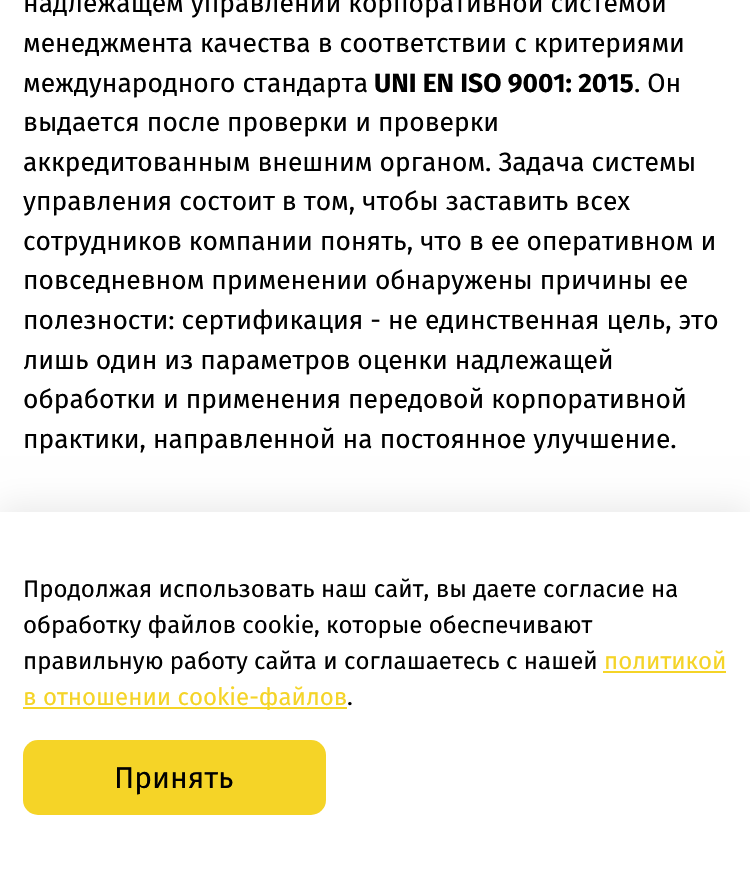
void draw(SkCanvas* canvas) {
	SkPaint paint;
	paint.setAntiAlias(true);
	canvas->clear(0xffffffff);
	SkFont f1(fontMgr->matchFamilyStyle("Fira Sans", SkFontStyle::Normal()), 26.4);
	f1.setSubpixel(true);
	paint.setColor(0xff000000);
	canvas->drawString("надлежащем управлении корпоративной системой", 23, 12, f1, paint);
	canvas->drawString("менеджмента качества в соответствии с критериями", 23, 52, f1, paint);
	canvas->drawString("международного стандарта", 23, 92, f1, paint);
	SkFont f2(fontMgr->matchFamilyStyle("Fira Sans", SkFontStyle::Bold()), 26.4);
	f2.setSubpixel(true);
	canvas->drawString("UNI EN ISO 9001: 2015", 374, 92, f2, paint);
	canvas->drawString(". Он", 634, 92, f1, paint);
	canvas->drawString("выдается после проверки и проверки", 23, 131, f1, paint);
	canvas->drawString("аккредитованным внешним органом. Задача системы", 23, 171, f1, paint);
	canvas->drawString("управления состоит в том, чтобы заставить всех", 23, 210, f1, paint);
	canvas->drawString("сотрудников компании понять, что в ее оперативном и", 23, 250, f1, paint);
	canvas->drawString("повседневном применении обнаружены причины ее", 23, 289, f1, paint);
	canvas->drawString("полезности: сертификация - не единственная цель, это", 23, 329, f1, paint);
	canvas->drawString("лишь один из параметров оценки надлежащей", 23, 369, f1, paint);
	canvas->drawString("обработки и применения передовой корпоративной", 23, 408, f1, paint);
	canvas->drawString("практики, направленной на постоянное улучшение.", 23, 448, f1, paint);
	paint.setColor(0x17000000);
	paint.setMaskFilter(SkMaskFilter::MakeBlur(kNormal_SkBlurStyle, 17));
	canvas->drawRect(SkRect::MakeXYWH(-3, 507, 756, 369), paint);
	paint.setMaskFilter(nullptr);
	paint.setColor(0xffffffff);
	canvas->drawRect(SkRect::MakeXYWH(0, 512, 750, 362), paint);
	SkFont f3(fontMgr->matchFamilyStyle("Fira Sans", SkFontStyle::Normal()), 24);
	f3.setSubpixel(true);
	paint.setColor(0xff000000);
	canvas->drawString("Продолжая использовать наш сайт, вы даете согласие на", 23, 597, f3, paint);
	canvas->drawString("обработку файлов cookie, которые обеспечивают", 23, 633, f3, paint);
	canvas->drawString("правильную работу сайта и соглашаетесь с нашей", 23, 669, f3, paint);
	paint.setColor(0xfff5d427);
	canvas->drawString("политикой", 604, 669, f3, paint);
	canvas->drawRect(SkRect::MakeXYWH(603, 671, 123, 2), paint);
	canvas->drawRect(SkRect::MakeXYWH(23, 707, 324, 2), paint);
	canvas->drawString("в отношении cookie-файлов", 23, 705, f3, paint);
	paint.setColor(0xff000000);
	canvas->drawString(".", 347, 705, f3, paint);
	paint.setColor(0xfff5d427);
	canvas->drawRoundRect(SkRect::MakeXYWH(23, 740, 303, 75), 15, 15, paint);
	SkFont f4(fontMgr->matchFamilyStyle("Fira Sans", SkFontStyle::Normal()), 30);
	f4.setSubpixel(true);
	paint.setColor(0xff000000);
	canvas->drawString("Принять", 114, 788, f4, paint);
}
